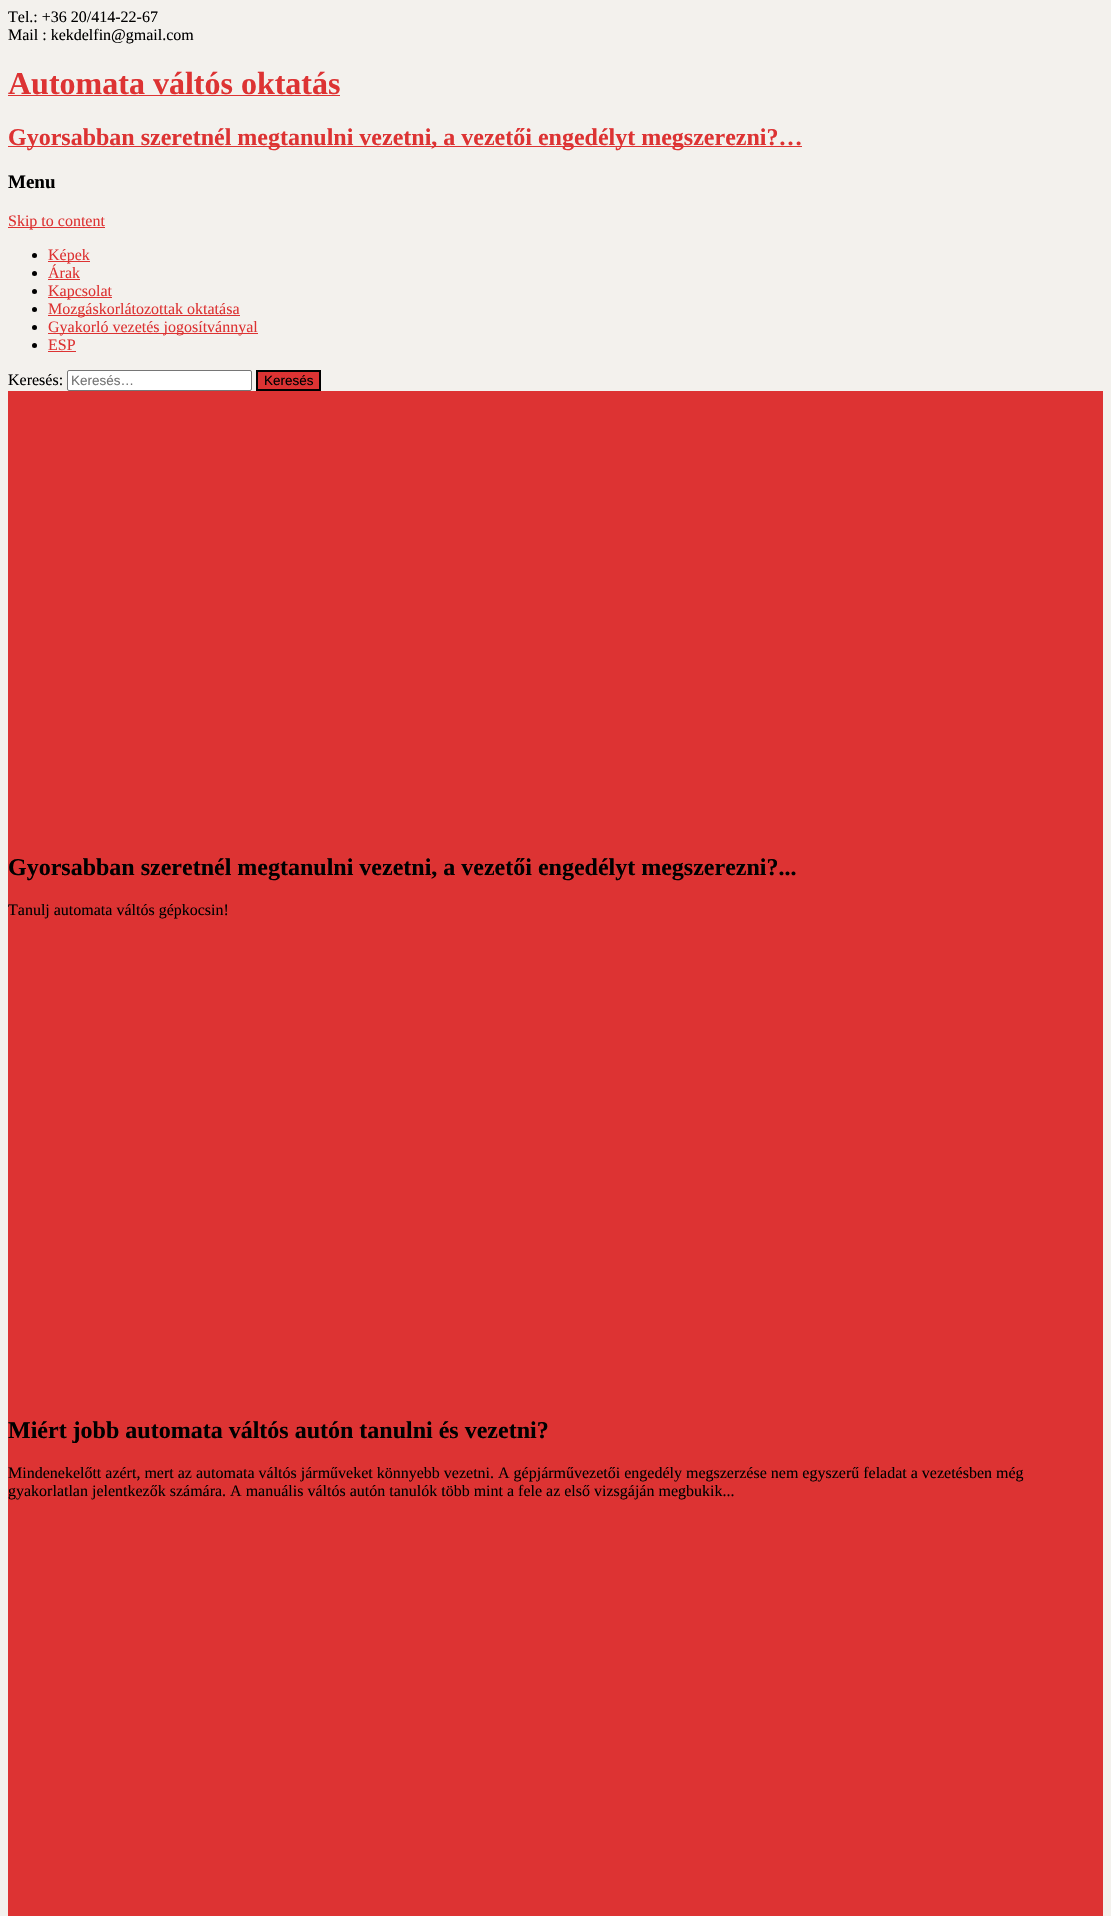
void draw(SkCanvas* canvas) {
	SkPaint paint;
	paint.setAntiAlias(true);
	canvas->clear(0xfff3f1ed);
	SkFont f1(fontMgr->matchFamilyStyle("Liberation Serif", SkFontStyle::Normal()), 16);
	f1.setSubpixel(true);
	paint.setColor(0xff000000);
	canvas->drawString("Tel.: +36 20/414-22-67", 8, 22, f1, paint);
	canvas->drawString("Mail : kekdelfin@gmail.com", 8, 40, f1, paint);
	SkFont f2(fontMgr->matchFamilyStyle("Liberation Serif", SkFontStyle::Bold()), 32);
	f2.setSubpixel(true);
	paint.setColor(0xffdd3333);
	canvas->drawString("Automata váltós oktatás", 8, 94, f2, paint);
	canvas->drawRect(SkRect::MakeXYWH(8, 95, 332, 1), paint);
	canvas->drawRect(SkRect::MakeXYWH(8, 146, 794, 1), paint);
	SkFont f3(fontMgr->matchFamilyStyle("Liberation Serif", SkFontStyle::Bold()), 24);
	f3.setSubpixel(true);
	canvas->drawString("Gyorsabban szeretnél megtanulni vezetni, a vezetői engedélyt megszerezni?…", 8, 145, f3, paint);
	SkFont f4(fontMgr->matchFamilyStyle("Liberation Serif", SkFontStyle::Bold()), 19);
	f4.setSubpixel(true);
	paint.setColor(0xff000000);
	canvas->drawString("Menu", 8, 188, f4, paint);
	paint.setColor(0xffdd3333);
	canvas->drawRect(SkRect::MakeXYWH(8, 227, 97, 1), paint);
	canvas->drawString("Skip to content", 8, 226, f1, paint);
	paint.setColor(0xff000000);
	canvas->drawCircle(34.5, 255.5, 2.5, paint);
	paint.setColor(0xffdd3333);
	canvas->drawRect(SkRect::MakeXYWH(48, 261, 42, 1), paint);
	canvas->drawString("Képek", 48, 260, f1, paint);
	paint.setColor(0xff000000);
	canvas->drawCircle(34.5, 273.5, 2.5, paint);
	paint.setColor(0xffdd3333);
	canvas->drawString("Árak", 48, 278, f1, paint);
	canvas->drawRect(SkRect::MakeXYWH(48, 279, 32, 1), paint);
	paint.setColor(0xff000000);
	canvas->drawCircle(34.5, 291.5, 2.5, paint);
	paint.setColor(0xffdd3333);
	canvas->drawRect(SkRect::MakeXYWH(48, 297, 64, 1), paint);
	canvas->drawString("Kapcsolat", 48, 296, f1, paint);
	paint.setColor(0xff000000);
	canvas->drawCircle(34.5, 309.5, 2.5, paint);
	paint.setColor(0xffdd3333);
	canvas->drawRect(SkRect::MakeXYWH(48, 315, 192, 1), paint);
	canvas->drawString("Mozgáskorlátozottak oktatása", 48, 314, f1, paint);
	paint.setColor(0xff000000);
	canvas->drawCircle(34.5, 327.5, 2.5, paint);
	paint.setColor(0xffdd3333);
	canvas->drawRect(SkRect::MakeXYWH(48, 333, 210, 1), paint);
	canvas->drawString("Gyakorló vezetés jogosítvánnyal", 48, 332, f1, paint);
	paint.setColor(0xff000000);
	canvas->drawCircle(34.5, 345.5, 2.5, paint);
	paint.setColor(0xffdd3333);
	canvas->drawString("ESP", 48, 350, f1, paint);
	canvas->drawRect(SkRect::MakeXYWH(48, 351, 28, 1), paint);
	paint.setColor(0xff000000);
	canvas->drawString("Keresés:", 8, 385, f1, paint);
	paint.setColor(0xffffffff);
	canvas->drawRoundRect(SkRect::MakeXYWH(67.5, 370.5, 184, 20), 1.5, 1.5, paint);
	paint.setStroke(true);
	paint.setStrokeWidth(1);
	paint.setColor(0xff767676);
	canvas->drawRoundRect(SkRect::MakeXYWH(67.5, 370.5, 184, 20), 1.5, 1.5, paint);
	SkFont f5(fontMgr->matchFamilyStyle("Liberation Sans", SkFontStyle::Normal()), 13.5);
	f5.setSubpixel(true);
	paint.setStroke(false);
	paint.setColor(0xff757575);
	canvas->drawString("Keresés…", 71, 385, f5, paint);
	paint.setColor(0xffdd3333);
	canvas->drawRect(SkRect::MakeXYWH(257, 371, 63, 19), paint);
	paint.setStroke(true);
	paint.setStrokeWidth(2);
	paint.setColor(0xff000000);
	canvas->drawRect(SkRect::MakeXYWH(257, 371, 63, 19), paint);
	paint.setStroke(false);
	canvas->drawString("Keresés", 264, 385, f5, paint);
	paint.setColor(0xffdd3333);
	canvas->drawRect(SkRect::MakeXYWH(8, 391, 1095, 1525), paint);
	paint.setColor(0xff000000);
	canvas->drawString("Gyorsabban szeretnél megtanulni vezetni, a vezetői engedélyt megszerezni?...", 8, 875, f3, paint);
	canvas->drawString("Tanulj automata váltós gépkocsin!", 8, 915, f1, paint);
	canvas->drawString("Miért jobb automata váltós autón tanulni és vezetni?", 8, 1438, f3, paint);
	canvas->drawString("Mindenekelőtt azért, mert az automata váltós járműveket könnyebb vezetni. A gépjárművezetői engedély megszerzése nem egyszerű feladat a vezetésben még", 8, 1478, f1, paint);
	canvas->drawString("gyakorlatlan jelentkezők számára. A manuális váltós autón tanulók több mint a fele az első vizsgáján megbukik...", 8, 1496, f1, paint);
}
